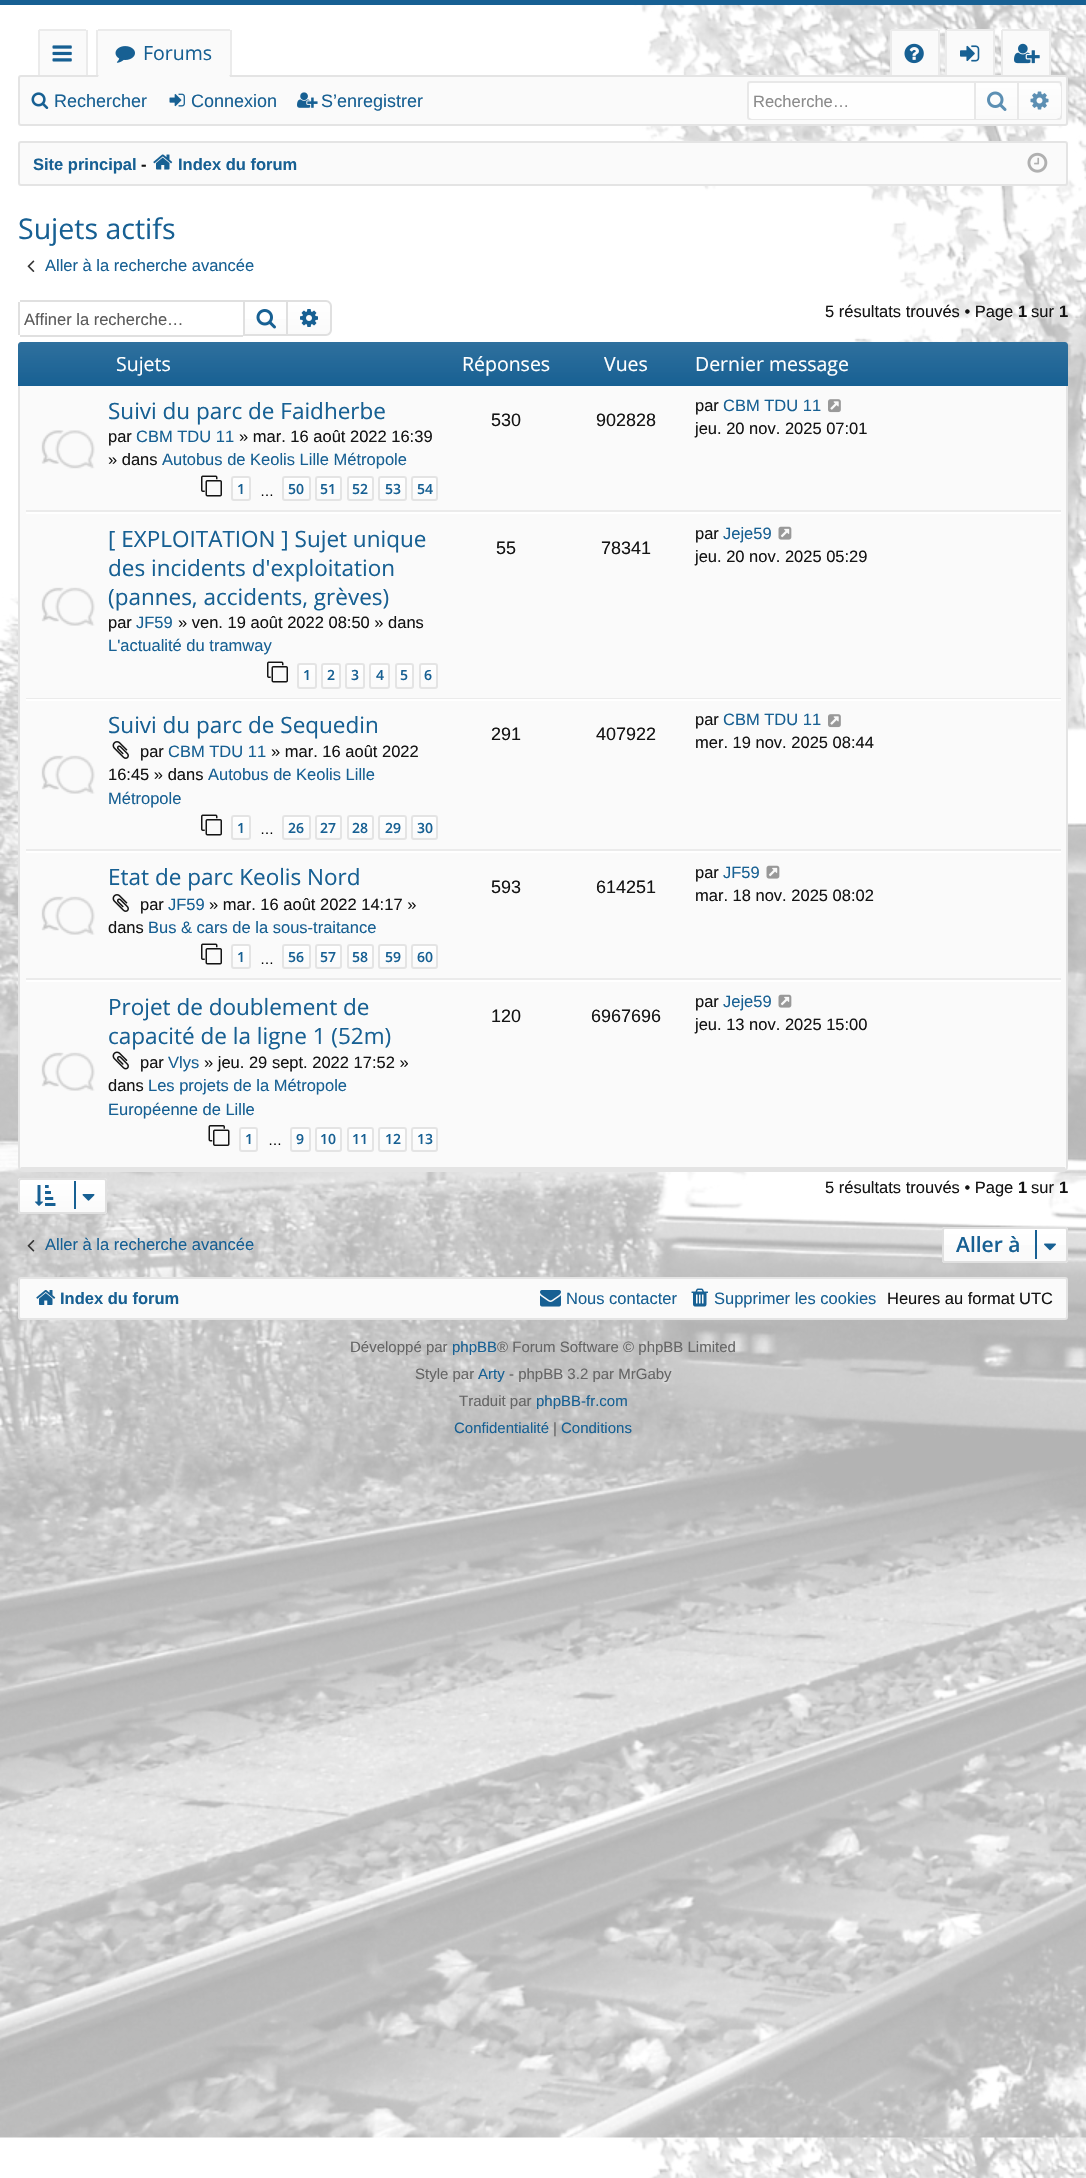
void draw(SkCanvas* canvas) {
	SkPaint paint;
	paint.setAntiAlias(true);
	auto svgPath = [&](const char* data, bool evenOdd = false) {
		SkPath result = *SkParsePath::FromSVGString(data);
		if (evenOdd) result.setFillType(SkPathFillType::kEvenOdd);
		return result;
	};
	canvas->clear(0xffffffff);
	canvas->drawImageRect(SkImages::DeferredFromEncodedData(SkData::MakeFromFileName("img1.png")), SkRect::MakeXYWH(0, 5, 1086, 2173), SkSamplingOptions());
	paint.setColor(0xff176093);
	canvas->drawRect(SkRect::MakeXYWH(0, 0, 1086, 5), paint);
	paint.setColor(0xfffafafa);
	canvas->drawRect(SkRect::MakeXYWH(40, 31, 46, 44), paint);
	paint.setColor(0xffebebeb);
	canvas->drawRect(SkRect::MakeXYWH(39, 29, 47, 2), paint);
	canvas->drawRect(SkRect::MakeXYWH(86, 30, 2, 47), paint);
	canvas->drawRect(SkRect::MakeXYWH(38, 30, 2, 47), paint);
	canvas->drawImageRect(SkImages::DeferredFromEncodedData(SkData::MakeFromFileName("img2.png")), SkRect::MakeXYWH(52, 45, 20, 17), SkSamplingOptions());
	paint.setColor(0xfffafafa);
	canvas->drawRect(SkRect::MakeXYWH(98, 31, 132, 44), paint);
	paint.setColor(0xffebebeb);
	canvas->drawRect(SkRect::MakeXYWH(98, 29, 132, 2), paint);
	canvas->drawRect(SkRect::MakeXYWH(230, 30, 2, 47), paint);
	canvas->drawRect(SkRect::MakeXYWH(96, 30, 2, 47), paint);
	canvas->drawImageRect(SkImages::DeferredFromEncodedData(SkData::MakeFromFileName("img3.png")), SkRect::MakeXYWH(115, 46, 20, 17), SkSamplingOptions());
	SkFont f1(fontMgr->matchFamilyStyle("Open Sans", SkFontStyle::Normal()), 19.5);
	f1.setSubpixel(true);
	paint.setColor(0xff176093);
	canvas->drawString("Forums", 143, 60, f1, paint);
	paint.setColor(0xffebebeb);
	canvas->drawRect(SkRect::MakeXYWH(938, 30, 2, 47), paint);
	canvas->drawRect(SkRect::MakeXYWH(891, 29, 47, 2), paint);
	canvas->drawRect(SkRect::MakeXYWH(890, 30, 2, 47), paint);
	canvas->drawRect(SkRect::MakeXYWH(993, 30, 2, 47), paint);
	canvas->drawRect(SkRect::MakeXYWH(945, 30, 2, 47), paint);
	canvas->drawRect(SkRect::MakeXYWH(1049, 30, 2, 47), paint);
	canvas->drawRect(SkRect::MakeXYWH(1002, 29, 47, 2), paint);
	canvas->drawRect(SkRect::MakeXYWH(1001, 30, 2, 47), paint);
	paint.setColor(0xfffafafa);
	canvas->drawRoundRect(SkRect::MakeXYWH(19, 76, 1048, 49), 2, 2, paint);
	paint.setStroke(true);
	paint.setStrokeWidth(2);
	paint.setColor(0xffe4e4e4);
	canvas->drawRoundRect(SkRect::MakeXYWH(19, 76, 1048, 49), 2, 2, paint);
	paint.setStroke(false);
	paint.setColor(0xfffafafa);
	canvas->drawPath(svgPath("M101 74H227C228.5 74 230 75.5 230 77V80H98V77C98 75.5 99.5 74 101 74Z"), paint);
	canvas->drawRect(SkRect::MakeXYWH(892, 31, 46, 44), paint);
	canvas->drawImageRect(SkImages::DeferredFromEncodedData(SkData::MakeFromFileName("img4.png")), SkRect::MakeXYWH(904, 43, 20, 21), SkSamplingOptions());
	canvas->drawRect(SkRect::MakeXYWH(947, 31, 46, 44), paint);
	paint.setColor(0xffebebeb);
	canvas->drawRect(SkRect::MakeXYWH(947, 29, 46, 2), paint);
	canvas->drawImageRect(SkImages::DeferredFromEncodedData(SkData::MakeFromFileName("img5.png")), SkRect::MakeXYWH(960, 45, 20, 17), SkSamplingOptions());
	paint.setColor(0xfffafafa);
	canvas->drawRect(SkRect::MakeXYWH(1003, 31, 46, 44), paint);
	canvas->drawImageRect(SkImages::DeferredFromEncodedData(SkData::MakeFromFileName("img6.png")), SkRect::MakeXYWH(1014, 43, 26, 21), SkSamplingOptions());
	canvas->drawImageRect(SkImages::DeferredFromEncodedData(SkData::MakeFromFileName("img7.png")), SkRect::MakeXYWH(31, 92, 18, 17), SkSamplingOptions());
	SkFont f2(fontMgr->matchFamilyStyle("Liberation Sans", SkFontStyle::Normal()), 18);
	f2.setSubpixel(true);
	paint.setColor(0xff176093);
	canvas->drawString("Rechercher", 54, 107, f2, paint);
	canvas->drawImageRect(SkImages::DeferredFromEncodedData(SkData::MakeFromFileName("img8.png")), SkRect::MakeXYWH(169, 93, 16, 14), SkSamplingOptions());
	canvas->drawString("Connexion", 191, 107, f2, paint);
	canvas->drawImageRect(SkImages::DeferredFromEncodedData(SkData::MakeFromFileName("img9.png")), SkRect::MakeXYWH(297, 92, 21, 16), SkSamplingOptions());
	canvas->drawString("S’enregistrer", 321, 107, f2, paint);
	paint.setStroke(true);
	paint.setColor(0xffe8e8e8);
	canvas->drawRoundRect(SkRect::MakeXYWH(748, 82, 313, 37), 2, 2, paint);
	paint.setStroke(false);
	paint.setColor(0xfffefefe);
	canvas->drawPath(svgPath("M752 83H974V119H752C750.5 119 749 117.5 749 116V86C749 84.5 750.5 83 752 83Z"), paint);
	SkFont f3(fontMgr->matchFamilyStyle("Liberation Sans", SkFontStyle::Normal()), 16.5);
	f3.setSubpixel(true);
	paint.setColor(0xff8b8b8b);
	canvas->drawString("Recherche…", 753, 107, f3, paint);
	{
		const SkColor colors[] = {0xfffefefe, 0xfffafafa};
		const float stops[] = {0, 1};
		const SkPoint ends[] = {{996, 83}, {996, 119}};
		paint.setShader(SkGradientShader::MakeLinear(ends, colors, stops, 2, SkTileMode::kClamp));
		paint.setAlpha(255);
	}
	canvas->drawRect(SkRect::MakeXYWH(976, 83, 41, 36), paint);
	paint.setShader(nullptr);
	paint.setColor(0xffe8e8e8);
	canvas->drawRect(SkRect::MakeXYWH(1017, 83, 2, 36), paint);
	canvas->drawRect(SkRect::MakeXYWH(974, 83, 2, 36), paint);
	canvas->drawImageRect(SkImages::DeferredFromEncodedData(SkData::MakeFromFileName("img10.png")), SkRect::MakeXYWH(987, 91, 20, 20), SkSamplingOptions());
	paint.setColor(0xfffafafa);
	canvas->drawPath(svgPath("M1019 83H1055C1058.5 83 1061 85.5 1061 89V113C1061 116.5 1058.5 119 1055 119H1019Z"), paint);
	{
		const SkColor colors[] = {0xfffefefe, 0x00fefefe};
		const float stops[] = {0, 1};
		const SkPoint ends[] = {{1040, 83}, {1040, 119}};
		paint.setShader(SkGradientShader::MakeLinear(ends, colors, stops, 2, SkTileMode::kClamp));
		paint.setAlpha(255);
	}
	canvas->drawPath(svgPath("M1019 83H1055C1058.5 83 1061 85.5 1061 89V113C1061 116.5 1058.5 119 1055 119H1019Z"), paint);
	canvas->drawImageRect(SkImages::DeferredFromEncodedData(SkData::MakeFromFileName("img11.png")), SkRect::MakeXYWH(1030, 91, 19, 19), SkSamplingOptions());
	paint.setShader(nullptr);
	paint.setColor(0xfffafafa);
	canvas->drawRoundRect(SkRect::MakeXYWH(19, 142, 1048, 43), 2, 2, paint);
	paint.setStroke(true);
	paint.setColor(0xffe4e4e4);
	canvas->drawRoundRect(SkRect::MakeXYWH(19, 142, 1048, 43), 2, 2, paint);
	SkFont f4(fontMgr->matchFamilyStyle("Liberation Sans", SkFontStyle::Bold()), 16.5);
	f4.setSubpixel(true);
	paint.setStroke(false);
	paint.setColor(0xff176093);
	canvas->drawString("Site principal", 33, 170, f4, paint);
	paint.setColor(0xff141414);
	canvas->drawString("-", 141, 170, f4, paint);
	canvas->drawImageRect(SkImages::DeferredFromEncodedData(SkData::MakeFromFileName("img12.png")), SkRect::MakeXYWH(153, 154, 20, 16), SkSamplingOptions());
	paint.setColor(0xff176093);
	canvas->drawString("Index du forum", 178, 170, f4, paint);
	canvas->drawImageRect(SkImages::DeferredFromEncodedData(SkData::MakeFromFileName("img13.png")), SkRect::MakeXYWH(1027, 152, 21, 21), SkSamplingOptions());
	SkFont f5(fontMgr->matchFamilyStyle("Open Sans", SkFontStyle::Normal()), 28.5);
	f5.setSubpixel(true);
	canvas->drawString("Sujets actifs", 18, 239, f5, paint);
	canvas->drawImageRect(SkImages::DeferredFromEncodedData(SkData::MakeFromFileName("img14.png")), SkRect::MakeXYWH(27, 260, 8, 12), SkSamplingOptions());
	canvas->drawString("Aller à la recherche avancée", 45, 271, f3, paint);
	paint.setColor(0xffe0e0e0);
	canvas->drawRect(SkRect::MakeXYWH(20, 300, 223, 2), paint);
	canvas->drawRect(SkRect::MakeXYWH(20, 335, 223, 2), paint);
	canvas->drawRect(SkRect::MakeXYWH(18, 302, 2, 33), paint);
	paint.setColor(0xff5b5b5b);
	canvas->drawString("Affiner la recherche…", 24, 325, f3, paint);
	{
		const SkColor colors[] = {0xffffffff, 0xfffafafa};
		const float stops[] = {0, 1};
		const SkPoint ends[] = {{266, 302}, {266, 335}};
		paint.setShader(SkGradientShader::MakeLinear(ends, colors, stops, 2, SkTileMode::kClamp));
		paint.setAlpha(255);
	}
	canvas->drawRect(SkRect::MakeXYWH(245, 319, 41, 15), paint);
	paint.setStroke(true);
	paint.setShader(nullptr);
	paint.setColor(0xffe0e0e0);
	canvas->drawRect(SkRect::MakeXYWH(244, 301, 43, 34), paint);
	canvas->drawImageRect(SkImages::DeferredFromEncodedData(SkData::MakeFromFileName("img15.png")), SkRect::MakeXYWH(256, 309, 20, 20), SkSamplingOptions());
	paint.setStroke(false);
	{
		const SkColor colors[] = {0xffffffff, 0xfffafafa};
		const float stops[] = {0, 1};
		const SkPoint ends[] = {{309, 302}, {309, 335}};
		paint.setShader(SkGradientShader::MakeLinear(ends, colors, stops, 2, SkTileMode::kClamp));
		paint.setAlpha(255);
	}
	canvas->drawPath(svgPath("M288 302H325C328 302 330 304 330 307V330C330 333 328 335 325 335H288Z"), paint);
	paint.setShader(nullptr);
	paint.setColor(0xffe0e0e0);
	canvas->drawPath(svgPath("M288 300H326C329 300 332 303 332 306V330C332 333 329 336 326 336H288ZM288 302H326C328 302 330 304 330 306V330C330 332 328 334 326 334H288Z", true), paint);
	canvas->drawImageRect(SkImages::DeferredFromEncodedData(SkData::MakeFromFileName("img16.png")), SkRect::MakeXYWH(300, 309, 18, 18), SkSamplingOptions());
	paint.setColor(0xff141414);
	canvas->drawString("5 résultats trouvés • Page", 825, 317, f3, paint);
	canvas->drawString("1", 1018, 317, f4, paint);
	canvas->drawString("sur", 1031, 317, f3, paint);
	canvas->drawString("1", 1059, 317, f4, paint);
	paint.setColor(0xfffafafa);
	canvas->drawPath(svgPath("M21 344H1065C1066 344 1066 344 1066 345V1166C1066 1166 1064 1167 1062 1167H24C22 1167 20 1166 20 1166V345C20 344 20 344 21 344Z"), paint);
	paint.setStroke(true);
	paint.setColor(0xffe4e4e4);
	canvas->drawPath(svgPath("M21 343H1065C1066 343 1067 344 1067 345V1166C1067 1169 1065 1171 1062 1171H24C21 1171 19 1169 19 1166V345C19 344 20 343 21 343Z"), paint);
	paint.setStroke(false);
	canvas->drawRect(SkRect::MakeXYWH(21, 1167, 1044, 3), paint);
	paint.setColor(0xff176093);
	canvas->drawPath(svgPath("M21 342H1065C1066.5 342 1068 343.5 1068 345V386H18V345C18 343.5 19.5 342 21 342Z"), paint);
	{
		const SkColor colors[] = {0x1affffff, 0x00ffffff};
		const float stops[] = {0, 1};
		const SkPoint ends[] = {{543, 342}, {543, 386}};
		paint.setShader(SkGradientShader::MakeLinear(ends, colors, stops, 2, SkTileMode::kClamp));
		paint.setAlpha(255);
	}
	canvas->drawPath(svgPath("M21 342H1065C1066.5 342 1068 343.5 1068 345V386H18V345C18 343.5 19.5 342 21 342Z"), paint);
	paint.setShader(nullptr);
	paint.setColor(0xffffffff);
	canvas->drawString("Sujets", 116, 371, f1, paint);
	canvas->drawString("Réponses", 462, 371, f1, paint);
	canvas->drawString("Vues", 604, 371, f1, paint);
	canvas->drawString("Dernier message", 695, 371, f1, paint);
	paint.setColor(0xffebebeb);
	canvas->drawRect(SkRect::MakeXYWH(26, 510, 1035, 2), paint);
	canvas->drawImageRect(SkImages::DeferredFromEncodedData(SkData::MakeFromFileName("img17.png")), SkRect::MakeXYWH(41, 430, 54, 39), SkSamplingOptions());
	SkFont f6(fontMgr->matchFamilyStyle("Open Sans", SkFontStyle::Normal()), 22.5);
	f6.setSubpixel(true);
	paint.setColor(0xff176093);
	canvas->drawString("Suivi du parc de Faidherbe", 108, 419, f6, paint);
	paint.setColor(0xff141414);
	canvas->drawString("par", 108, 442, f3, paint);
	paint.setColor(0xff176093);
	canvas->drawString("CBM TDU 11", 136, 442, f3, paint);
	paint.setColor(0xff141414);
	canvas->drawString("» mar. 16 août 2022 16:39", 239, 442, f3, paint);
	canvas->drawString("» dans", 108, 465, f3, paint);
	paint.setColor(0xff176093);
	canvas->drawString("Autobus de Keolis Lille Métropole", 162, 465, f3, paint);
	canvas->drawImageRect(SkImages::DeferredFromEncodedData(SkData::MakeFromFileName("img18.png")), SkRect::MakeXYWH(201, 475, 21, 22), SkSamplingOptions());
	canvas->save();
	canvas->clipPath(svgPath("M234 476H248C249.5 476 251 477.5 251 479V498C251 499.5 249.5 501 248 501H234C232.5 501 231 499.5 231 498V479C231 477.5 232.5 476 234 476Z"), true);
	{
		const SkColor colors[] = {0xffffffff, 0xfffafafa};
		const float stops[] = {0, 1};
		const SkPoint ends[] = {{241, 477}, {241, 500}};
		paint.setShader(SkGradientShader::MakeLinear(ends, colors, stops, 2, SkTileMode::kClamp));
		paint.setAlpha(255);
	}
	canvas->drawRect(SkRect::MakeXYWH(231, 477, 20, 23), paint);
	canvas->restore();
	paint.setStroke(true);
	paint.setShader(nullptr);
	paint.setColor(0xffe4e4e4);
	canvas->drawRoundRect(SkRect::MakeXYWH(232, 477, 18, 23), 2, 2, paint);
	SkFont f7(fontMgr->matchFamilyStyle("Open Sans", SkFontStyle(600, SkFontStyle::kNormal_Width, SkFontStyle::kUpright_Slant)), 14);
	f7.setSubpixel(true);
	paint.setStroke(false);
	paint.setColor(0xff176093);
	canvas->drawString("1", 237, 494, f7, paint);
	SkFont f8(fontMgr->matchFamilyStyle("Liberation Sans", SkFontStyle::Normal()), 14);
	f8.setSubpixel(true);
	paint.setColor(0xff000000);
	canvas->drawString("…", 260, 496, f8, paint);
	canvas->save();
	canvas->clipPath(svgPath("M285 476H308C309.5 476 311 477.5 311 479V498C311 499.5 309.5 501 308 501H285C283.5 501 282 499.5 282 498V479C282 477.5 283.5 476 285 476Z"), true);
	{
		const SkColor colors[] = {0xffffffff, 0xfffafafa};
		const float stops[] = {0, 1};
		const SkPoint ends[] = {{296, 477}, {296, 500}};
		paint.setShader(SkGradientShader::MakeLinear(ends, colors, stops, 2, SkTileMode::kClamp));
		paint.setAlpha(255);
	}
	canvas->drawRect(SkRect::MakeXYWH(282, 477, 29, 23), paint);
	canvas->restore();
	paint.setStroke(true);
	paint.setShader(nullptr);
	paint.setColor(0xffe4e4e4);
	canvas->drawRoundRect(SkRect::MakeXYWH(283, 477, 27, 23), 2, 2, paint);
	paint.setStroke(false);
	paint.setColor(0xff176093);
	canvas->drawString("50", 288, 494, f7, paint);
	canvas->save();
	canvas->clipPath(svgPath("M318 476H339C340.5 476 342 477.5 342 479V498C342 499.5 340.5 501 339 501H318C316.5 501 315 499.5 315 498V479C315 477.5 316.5 476 318 476Z"), true);
	{
		const SkColor colors[] = {0xffffffff, 0xfffafafa};
		const float stops[] = {0, 1};
		const SkPoint ends[] = {{329, 477}, {329, 500}};
		paint.setShader(SkGradientShader::MakeLinear(ends, colors, stops, 2, SkTileMode::kClamp));
		paint.setAlpha(255);
	}
	canvas->drawRect(SkRect::MakeXYWH(315, 477, 27, 23), paint);
	canvas->restore();
	paint.setStroke(true);
	paint.setShader(nullptr);
	paint.setColor(0xffe4e4e4);
	canvas->drawRoundRect(SkRect::MakeXYWH(316, 477, 25, 23), 2, 2, paint);
	paint.setStroke(false);
	paint.setColor(0xff176093);
	canvas->drawString("51", 320, 494, f7, paint);
	canvas->save();
	canvas->clipPath(svgPath("M350 476H371C372.5 476 374 477.5 374 479V498C374 499.5 372.5 501 371 501H350C348.5 501 347 499.5 347 498V479C347 477.5 348.5 476 350 476Z"), true);
	{
		const SkColor colors[] = {0xffffffff, 0xfffafafa};
		const float stops[] = {0, 1};
		const SkPoint ends[] = {{360, 477}, {360, 500}};
		paint.setShader(SkGradientShader::MakeLinear(ends, colors, stops, 2, SkTileMode::kClamp));
		paint.setAlpha(255);
	}
	canvas->drawRect(SkRect::MakeXYWH(347, 477, 27, 23), paint);
	canvas->restore();
	paint.setStroke(true);
	paint.setShader(nullptr);
	paint.setColor(0xffe4e4e4);
	canvas->drawRoundRect(SkRect::MakeXYWH(348, 477, 25, 23), 2, 2, paint);
	paint.setStroke(false);
	paint.setColor(0xff176093);
	canvas->drawString("52", 352, 494, f7, paint);
	canvas->save();
	canvas->clipPath(svgPath("M381 476H404C405.5 476 407 477.5 407 479V498C407 499.5 405.5 501 404 501H381C379.5 501 378 499.5 378 498V479C378 477.5 379.5 476 381 476Z"), true);
	{
		const SkColor colors[] = {0xffffffff, 0xfffafafa};
		const float stops[] = {0, 1};
		const SkPoint ends[] = {{392, 477}, {392, 500}};
		paint.setShader(SkGradientShader::MakeLinear(ends, colors, stops, 2, SkTileMode::kClamp));
		paint.setAlpha(255);
	}
	canvas->drawRect(SkRect::MakeXYWH(378, 477, 29, 23), paint);
	canvas->restore();
	paint.setStroke(true);
	paint.setShader(nullptr);
	paint.setColor(0xffe4e4e4);
	canvas->drawRoundRect(SkRect::MakeXYWH(379, 477, 27, 23), 2, 2, paint);
	paint.setStroke(false);
	paint.setColor(0xff176093);
	canvas->drawString("53", 385, 494, f7, paint);
	canvas->save();
	canvas->clipPath(svgPath("M414 476H435C436.5 476 438 477.5 438 479V498C438 499.5 436.5 501 435 501H414C412.5 501 411 499.5 411 498V479C411 477.5 412.5 476 414 476Z"), true);
	{
		const SkColor colors[] = {0xffffffff, 0xfffafafa};
		const float stops[] = {0, 1};
		const SkPoint ends[] = {{425, 477}, {425, 500}};
		paint.setShader(SkGradientShader::MakeLinear(ends, colors, stops, 2, SkTileMode::kClamp));
		paint.setAlpha(255);
	}
	canvas->drawRect(SkRect::MakeXYWH(411, 477, 27, 23), paint);
	canvas->restore();
	paint.setStroke(true);
	paint.setShader(nullptr);
	paint.setColor(0xffe4e4e4);
	canvas->drawRoundRect(SkRect::MakeXYWH(412, 477, 25, 23), 2, 2, paint);
	paint.setStroke(false);
	paint.setColor(0xff176093);
	canvas->drawString("54", 417, 494, f7, paint);
	paint.setColor(0xff141414);
	canvas->drawString("530", 491, 426, f2, paint);
	canvas->drawString("902828", 596, 426, f2, paint);
	canvas->drawString("par", 695, 411, f3, paint);
	paint.setColor(0xff176093);
	canvas->drawString("CBM TDU 11", 723, 411, f3, paint);
	canvas->drawImageRect(SkImages::DeferredFromEncodedData(SkData::MakeFromFileName("img19.png")), SkRect::MakeXYWH(828, 399, 13, 14), SkSamplingOptions());
	paint.setColor(0xff141414);
	canvas->drawString("jeu. 20 nov. 2025 07:01", 695, 434, f3, paint);
	paint.setColor(0xffffffff);
	canvas->drawRect(SkRect::MakeXYWH(26, 512, 1035, 2), paint);
	paint.setColor(0xffebebeb);
	canvas->drawRect(SkRect::MakeXYWH(26, 698, 1035, 1), paint);
	canvas->drawImageRect(SkImages::DeferredFromEncodedData(SkData::MakeFromFileName("img20.png")), SkRect::MakeXYWH(41, 587, 54, 39), SkSamplingOptions());
	paint.setColor(0xff176093);
	canvas->drawString("[ EXPLOITATION ] Sujet unique", 108, 547, f6, paint);
	canvas->drawString("des incidents d'exploitation", 108, 576, f6, paint);
	canvas->drawString("(pannes, accidents, grèves)", 108, 605, f6, paint);
	paint.setColor(0xff141414);
	canvas->drawString("par", 108, 628, f3, paint);
	paint.setColor(0xff176093);
	canvas->drawString("JF59", 136, 628, f3, paint);
	paint.setColor(0xff141414);
	canvas->drawString("» ven. 19 août 2022 08:50 » dans", 178, 628, f3, paint);
	paint.setColor(0xff176093);
	canvas->drawString("L'actualité du tramway", 108, 651, f3, paint);
	canvas->drawImageRect(SkImages::DeferredFromEncodedData(SkData::MakeFromFileName("img18.png")), SkRect::MakeXYWH(267, 661, 21, 22), SkSamplingOptions());
	canvas->save();
	canvas->clipPath(svgPath("M300 663H314C315.5 663 317 664.5 317 666V686C317 687.5 315.5 689 314 689H300C298.5 689 297 687.5 297 686V666C297 664.5 298.5 663 300 663Z"), true);
	{
		const SkColor colors[] = {0xffffffff, 0xfffafafa};
		const float stops[] = {0, 1};
		const SkPoint ends[] = {{307, 665}, {307, 687}};
		paint.setShader(SkGradientShader::MakeLinear(ends, colors, stops, 2, SkTileMode::kClamp));
		paint.setAlpha(255);
	}
	canvas->drawRect(SkRect::MakeXYWH(297, 665, 20, 22), paint);
	canvas->restore();
	paint.setStroke(true);
	paint.setShader(nullptr);
	paint.setColor(0xffe4e4e4);
	canvas->drawRoundRect(SkRect::MakeXYWH(298, 664, 18, 24), 2, 2, paint);
	paint.setStroke(false);
	paint.setColor(0xff176093);
	canvas->drawString("1", 303, 680, f7, paint);
	canvas->save();
	canvas->clipPath(svgPath("M324 663H338C339.5 663 341 664.5 341 666V686C341 687.5 339.5 689 338 689H324C322.5 689 321 687.5 321 686V666C321 664.5 322.5 663 324 663Z"), true);
	{
		const SkColor colors[] = {0xffffffff, 0xfffafafa};
		const float stops[] = {0, 1};
		const SkPoint ends[] = {{331, 665}, {331, 687}};
		paint.setShader(SkGradientShader::MakeLinear(ends, colors, stops, 2, SkTileMode::kClamp));
		paint.setAlpha(255);
	}
	canvas->drawRect(SkRect::MakeXYWH(321, 665, 20, 22), paint);
	canvas->restore();
	paint.setStroke(true);
	paint.setShader(nullptr);
	paint.setColor(0xffe4e4e4);
	canvas->drawRoundRect(SkRect::MakeXYWH(322, 664, 18, 24), 2, 2, paint);
	paint.setStroke(false);
	paint.setColor(0xff176093);
	canvas->drawString("2", 327, 680, f7, paint);
	canvas->save();
	canvas->clipPath(svgPath("M348 663H362C363.5 663 365 664.5 365 666V686C365 687.5 363.5 689 362 689H348C346.5 689 345 687.5 345 686V666C345 664.5 346.5 663 348 663Z"), true);
	{
		const SkColor colors[] = {0xffffffff, 0xfffafafa};
		const float stops[] = {0, 1};
		const SkPoint ends[] = {{355, 665}, {355, 687}};
		paint.setShader(SkGradientShader::MakeLinear(ends, colors, stops, 2, SkTileMode::kClamp));
		paint.setAlpha(255);
	}
	canvas->drawRect(SkRect::MakeXYWH(345, 665, 20, 22), paint);
	canvas->restore();
	paint.setStroke(true);
	paint.setShader(nullptr);
	paint.setColor(0xffe4e4e4);
	canvas->drawRoundRect(SkRect::MakeXYWH(346, 664, 18, 24), 2, 2, paint);
	paint.setStroke(false);
	paint.setColor(0xff176093);
	canvas->drawString("3", 351, 680, f7, paint);
	canvas->save();
	canvas->clipPath(svgPath("M372 663H387C388.5 663 390 664.5 390 666V686C390 687.5 388.5 689 387 689H372C370.5 689 369 687.5 369 686V666C369 664.5 370.5 663 372 663Z"), true);
	{
		const SkColor colors[] = {0xffffffff, 0xfffafafa};
		const float stops[] = {0, 1};
		const SkPoint ends[] = {{380, 665}, {380, 687}};
		paint.setShader(SkGradientShader::MakeLinear(ends, colors, stops, 2, SkTileMode::kClamp));
		paint.setAlpha(255);
	}
	canvas->drawRect(SkRect::MakeXYWH(369, 665, 21, 22), paint);
	canvas->restore();
	paint.setStroke(true);
	paint.setShader(nullptr);
	paint.setColor(0xffe4e4e4);
	canvas->drawRoundRect(SkRect::MakeXYWH(370, 664, 19, 24), 2, 2, paint);
	paint.setStroke(false);
	paint.setColor(0xff176093);
	canvas->drawString("4", 376, 680, f7, paint);
	canvas->save();
	canvas->clipPath(svgPath("M398 663H411C412.5 663 414 664.5 414 666V686C414 687.5 412.5 689 411 689H398C396.5 689 395 687.5 395 686V666C395 664.5 396.5 663 398 663Z"), true);
	{
		const SkColor colors[] = {0xffffffff, 0xfffafafa};
		const float stops[] = {0, 1};
		const SkPoint ends[] = {{404, 665}, {404, 687}};
		paint.setShader(SkGradientShader::MakeLinear(ends, colors, stops, 2, SkTileMode::kClamp));
		paint.setAlpha(255);
	}
	canvas->drawRect(SkRect::MakeXYWH(395, 665, 19, 22), paint);
	canvas->restore();
	paint.setStroke(true);
	paint.setShader(nullptr);
	paint.setColor(0xffe4e4e4);
	canvas->drawRoundRect(SkRect::MakeXYWH(396, 664, 17, 24), 2, 2, paint);
	paint.setStroke(false);
	paint.setColor(0xff176093);
	canvas->drawString("5", 400, 680, f7, paint);
	canvas->save();
	canvas->clipPath(svgPath("M422 663H435C436.5 663 438 664.5 438 666V686C438 687.5 436.5 689 435 689H422C420.5 689 419 687.5 419 686V666C419 664.5 420.5 663 422 663Z"), true);
	{
		const SkColor colors[] = {0xffffffff, 0xfffafafa};
		const float stops[] = {0, 1};
		const SkPoint ends[] = {{428, 665}, {428, 687}};
		paint.setShader(SkGradientShader::MakeLinear(ends, colors, stops, 2, SkTileMode::kClamp));
		paint.setAlpha(255);
	}
	canvas->drawRect(SkRect::MakeXYWH(419, 665, 19, 22), paint);
	canvas->restore();
	paint.setStroke(true);
	paint.setShader(nullptr);
	paint.setColor(0xffe4e4e4);
	canvas->drawRoundRect(SkRect::MakeXYWH(420, 664, 17, 24), 2, 2, paint);
	paint.setStroke(false);
	paint.setColor(0xff176093);
	canvas->drawString("6", 424, 680, f7, paint);
	paint.setColor(0xff141414);
	canvas->drawString("55", 496, 554, f2, paint);
	canvas->drawString("78341", 601, 554, f2, paint);
	canvas->drawString("par", 695, 539, f3, paint);
	paint.setColor(0xff176093);
	canvas->drawString("Jeje59", 723, 539, f3, paint);
	canvas->drawImageRect(SkImages::DeferredFromEncodedData(SkData::MakeFromFileName("img21.png")), SkRect::MakeXYWH(778, 526, 14, 14), SkSamplingOptions());
	paint.setColor(0xff141414);
	canvas->drawString("jeu. 20 nov. 2025 05:29", 695, 562, f3, paint);
	paint.setColor(0xffffffff);
	canvas->drawRect(SkRect::MakeXYWH(26, 699, 1035, 2), paint);
	paint.setColor(0xffebebeb);
	canvas->drawRect(SkRect::MakeXYWH(26, 849, 1035, 2), paint);
	canvas->drawImageRect(SkImages::DeferredFromEncodedData(SkData::MakeFromFileName("img20.png")), SkRect::MakeXYWH(41, 755, 54, 39), SkSamplingOptions());
	paint.setColor(0xff176093);
	canvas->drawString("Suivi du parc de Sequedin", 108, 733, f6, paint);
	canvas->drawImageRect(SkImages::DeferredFromEncodedData(SkData::MakeFromFileName("img22.png")), SkRect::MakeXYWH(112, 741, 17, 18), SkSamplingOptions());
	paint.setColor(0xff141414);
	canvas->drawString("par", 140, 757, f3, paint);
	paint.setColor(0xff176093);
	canvas->drawString("CBM TDU 11", 168, 757, f3, paint);
	paint.setColor(0xff141414);
	canvas->drawString("» mar. 16 août 2022", 271, 757, f3, paint);
	canvas->drawString("16:45 » dans", 108, 780, f3, paint);
	paint.setColor(0xff176093);
	canvas->drawString("Autobus de Keolis Lille", 208, 780, f3, paint);
	canvas->drawString("Métropole", 108, 804, f3, paint);
	canvas->drawImageRect(SkImages::DeferredFromEncodedData(SkData::MakeFromFileName("img18.png")), SkRect::MakeXYWH(201, 814, 21, 22), SkSamplingOptions());
	canvas->save();
	canvas->clipPath(svgPath("M234 815H248C249.5 815 251 816.5 251 818V837C251 838.5 249.5 840 248 840H234C232.5 840 231 838.5 231 837V818C231 816.5 232.5 815 234 815Z"), true);
	{
		const SkColor colors[] = {0xffffffff, 0xfffafafa};
		const float stops[] = {0, 1};
		const SkPoint ends[] = {{241, 816}, {241, 839}};
		paint.setShader(SkGradientShader::MakeLinear(ends, colors, stops, 2, SkTileMode::kClamp));
		paint.setAlpha(255);
	}
	canvas->drawRect(SkRect::MakeXYWH(231, 816, 20, 23), paint);
	canvas->restore();
	paint.setStroke(true);
	paint.setShader(nullptr);
	paint.setColor(0xffe4e4e4);
	canvas->drawRoundRect(SkRect::MakeXYWH(232, 816, 18, 23), 2, 2, paint);
	paint.setStroke(false);
	paint.setColor(0xff176093);
	canvas->drawString("1", 237, 833, f7, paint);
	paint.setColor(0xff000000);
	canvas->drawString("…", 260, 834, f8, paint);
	canvas->save();
	canvas->clipPath(svgPath("M285 815H308C309.5 815 311 816.5 311 818V837C311 838.5 309.5 840 308 840H285C283.5 840 282 838.5 282 837V818C282 816.5 283.5 815 285 815Z"), true);
	{
		const SkColor colors[] = {0xffffffff, 0xfffafafa};
		const float stops[] = {0, 1};
		const SkPoint ends[] = {{296, 816}, {296, 839}};
		paint.setShader(SkGradientShader::MakeLinear(ends, colors, stops, 2, SkTileMode::kClamp));
		paint.setAlpha(255);
	}
	canvas->drawRect(SkRect::MakeXYWH(282, 816, 29, 23), paint);
	canvas->restore();
	paint.setStroke(true);
	paint.setShader(nullptr);
	paint.setColor(0xffe4e4e4);
	canvas->drawRoundRect(SkRect::MakeXYWH(283, 816, 27, 23), 2, 2, paint);
	paint.setStroke(false);
	paint.setColor(0xff176093);
	canvas->drawString("26", 288, 833, f7, paint);
	canvas->save();
	canvas->clipPath(svgPath("M318 815H339C340.5 815 342 816.5 342 818V837C342 838.5 340.5 840 339 840H318C316.5 840 315 838.5 315 837V818C315 816.5 316.5 815 318 815Z"), true);
	{
		const SkColor colors[] = {0xffffffff, 0xfffafafa};
		const float stops[] = {0, 1};
		const SkPoint ends[] = {{329, 816}, {329, 839}};
		paint.setShader(SkGradientShader::MakeLinear(ends, colors, stops, 2, SkTileMode::kClamp));
		paint.setAlpha(255);
	}
	canvas->drawRect(SkRect::MakeXYWH(315, 816, 27, 23), paint);
	canvas->restore();
	paint.setStroke(true);
	paint.setShader(nullptr);
	paint.setColor(0xffe4e4e4);
	canvas->drawRoundRect(SkRect::MakeXYWH(316, 816, 25, 23), 2, 2, paint);
	paint.setStroke(false);
	paint.setColor(0xff176093);
	canvas->drawString("27", 320, 833, f7, paint);
	canvas->save();
	canvas->clipPath(svgPath("M350 815H371C372.5 815 374 816.5 374 818V837C374 838.5 372.5 840 371 840H350C348.5 840 347 838.5 347 837V818C347 816.5 348.5 815 350 815Z"), true);
	{
		const SkColor colors[] = {0xffffffff, 0xfffafafa};
		const float stops[] = {0, 1};
		const SkPoint ends[] = {{360, 816}, {360, 839}};
		paint.setShader(SkGradientShader::MakeLinear(ends, colors, stops, 2, SkTileMode::kClamp));
		paint.setAlpha(255);
	}
	canvas->drawRect(SkRect::MakeXYWH(347, 816, 27, 23), paint);
	canvas->restore();
	paint.setStroke(true);
	paint.setShader(nullptr);
	paint.setColor(0xffe4e4e4);
	canvas->drawRoundRect(SkRect::MakeXYWH(348, 816, 25, 23), 2, 2, paint);
	paint.setStroke(false);
	paint.setColor(0xff176093);
	canvas->drawString("28", 352, 833, f7, paint);
	canvas->save();
	canvas->clipPath(svgPath("M381 815H404C405.5 815 407 816.5 407 818V837C407 838.5 405.5 840 404 840H381C379.5 840 378 838.5 378 837V818C378 816.5 379.5 815 381 815Z"), true);
	{
		const SkColor colors[] = {0xffffffff, 0xfffafafa};
		const float stops[] = {0, 1};
		const SkPoint ends[] = {{392, 816}, {392, 839}};
		paint.setShader(SkGradientShader::MakeLinear(ends, colors, stops, 2, SkTileMode::kClamp));
		paint.setAlpha(255);
	}
	canvas->drawRect(SkRect::MakeXYWH(378, 816, 29, 23), paint);
	canvas->restore();
	paint.setStroke(true);
	paint.setShader(nullptr);
	paint.setColor(0xffe4e4e4);
	canvas->drawRoundRect(SkRect::MakeXYWH(379, 816, 27, 23), 2, 2, paint);
	paint.setStroke(false);
	paint.setColor(0xff176093);
	canvas->drawString("29", 385, 833, f7, paint);
	canvas->save();
	canvas->clipPath(svgPath("M414 815H435C436.5 815 438 816.5 438 818V837C438 838.5 436.5 840 435 840H414C412.5 840 411 838.5 411 837V818C411 816.5 412.5 815 414 815Z"), true);
	{
		const SkColor colors[] = {0xffffffff, 0xfffafafa};
		const float stops[] = {0, 1};
		const SkPoint ends[] = {{425, 816}, {425, 839}};
		paint.setShader(SkGradientShader::MakeLinear(ends, colors, stops, 2, SkTileMode::kClamp));
		paint.setAlpha(255);
	}
	canvas->drawRect(SkRect::MakeXYWH(411, 816, 27, 23), paint);
	canvas->restore();
	paint.setStroke(true);
	paint.setShader(nullptr);
	paint.setColor(0xffe4e4e4);
	canvas->drawRoundRect(SkRect::MakeXYWH(412, 816, 25, 23), 2, 2, paint);
	paint.setStroke(false);
	paint.setColor(0xff176093);
	canvas->drawString("30", 417, 833, f7, paint);
	paint.setColor(0xff141414);
	canvas->drawString("291", 491, 740, f2, paint);
	canvas->drawString("407922", 596, 740, f2, paint);
	canvas->drawString("par", 695, 725, f3, paint);
	paint.setColor(0xff176093);
	canvas->drawString("CBM TDU 11", 723, 725, f3, paint);
	canvas->drawImageRect(SkImages::DeferredFromEncodedData(SkData::MakeFromFileName("img19.png")), SkRect::MakeXYWH(828, 714, 13, 14), SkSamplingOptions());
	paint.setColor(0xff141414);
	canvas->drawString("mer. 19 nov. 2025 08:44", 695, 748, f3, paint);
	paint.setColor(0xffffffff);
	canvas->drawRect(SkRect::MakeXYWH(26, 851, 1035, 2), paint);
	paint.setColor(0xffebebeb);
	canvas->drawRect(SkRect::MakeXYWH(26, 978, 1035, 2), paint);
	canvas->drawImageRect(SkImages::DeferredFromEncodedData(SkData::MakeFromFileName("img20.png")), SkRect::MakeXYWH(41, 896, 54, 39), SkSamplingOptions());
	paint.setColor(0xff176093);
	canvas->drawString("Etat de parc Keolis Nord", 108, 885, f6, paint);
	canvas->drawImageRect(SkImages::DeferredFromEncodedData(SkData::MakeFromFileName("img22.png")), SkRect::MakeXYWH(112, 894, 17, 18), SkSamplingOptions());
	paint.setColor(0xff141414);
	canvas->drawString("par", 140, 910, f3, paint);
	paint.setColor(0xff176093);
	canvas->drawString("JF59", 168, 910, f3, paint);
	paint.setColor(0xff141414);
	canvas->drawString("» mar. 16 août 2022 14:17 »", 209, 910, f3, paint);
	canvas->drawString("dans", 108, 933, f3, paint);
	paint.setColor(0xff176093);
	canvas->drawString("Bus & cars de la sous-traitance", 148, 933, f3, paint);
	canvas->drawImageRect(SkImages::DeferredFromEncodedData(SkData::MakeFromFileName("img18.png")), SkRect::MakeXYWH(201, 943, 21, 22), SkSamplingOptions());
	canvas->save();
	canvas->clipPath(svgPath("M234 944H248C249.5 944 251 945.5 251 947V966C251 967.5 249.5 969 248 969H234C232.5 969 231 967.5 231 966V947C231 945.5 232.5 944 234 944Z"), true);
	{
		const SkColor colors[] = {0xffffffff, 0xfffafafa};
		const float stops[] = {0, 1};
		const SkPoint ends[] = {{241, 945}, {241, 968}};
		paint.setShader(SkGradientShader::MakeLinear(ends, colors, stops, 2, SkTileMode::kClamp));
		paint.setAlpha(255);
	}
	canvas->drawRect(SkRect::MakeXYWH(231, 945, 20, 23), paint);
	canvas->restore();
	paint.setStroke(true);
	paint.setShader(nullptr);
	paint.setColor(0xffe4e4e4);
	canvas->drawRoundRect(SkRect::MakeXYWH(232, 945, 18, 23), 2, 2, paint);
	paint.setStroke(false);
	paint.setColor(0xff176093);
	canvas->drawString("1", 237, 962, f7, paint);
	paint.setColor(0xff000000);
	canvas->drawString("…", 260, 964, f8, paint);
	canvas->save();
	canvas->clipPath(svgPath("M285 944H308C309.5 944 311 945.5 311 947V966C311 967.5 309.5 969 308 969H285C283.5 969 282 967.5 282 966V947C282 945.5 283.5 944 285 944Z"), true);
	{
		const SkColor colors[] = {0xffffffff, 0xfffafafa};
		const float stops[] = {0, 1};
		const SkPoint ends[] = {{296, 945}, {296, 968}};
		paint.setShader(SkGradientShader::MakeLinear(ends, colors, stops, 2, SkTileMode::kClamp));
		paint.setAlpha(255);
	}
	canvas->drawRect(SkRect::MakeXYWH(282, 945, 29, 23), paint);
	canvas->restore();
	paint.setStroke(true);
	paint.setShader(nullptr);
	paint.setColor(0xffe4e4e4);
	canvas->drawRoundRect(SkRect::MakeXYWH(283, 945, 27, 23), 2, 2, paint);
	paint.setStroke(false);
	paint.setColor(0xff176093);
	canvas->drawString("56", 288, 962, f7, paint);
	canvas->save();
	canvas->clipPath(svgPath("M318 944H339C340.5 944 342 945.5 342 947V966C342 967.5 340.5 969 339 969H318C316.5 969 315 967.5 315 966V947C315 945.5 316.5 944 318 944Z"), true);
	{
		const SkColor colors[] = {0xffffffff, 0xfffafafa};
		const float stops[] = {0, 1};
		const SkPoint ends[] = {{329, 945}, {329, 968}};
		paint.setShader(SkGradientShader::MakeLinear(ends, colors, stops, 2, SkTileMode::kClamp));
		paint.setAlpha(255);
	}
	canvas->drawRect(SkRect::MakeXYWH(315, 945, 27, 23), paint);
	canvas->restore();
	paint.setStroke(true);
	paint.setShader(nullptr);
	paint.setColor(0xffe4e4e4);
	canvas->drawRoundRect(SkRect::MakeXYWH(316, 945, 25, 23), 2, 2, paint);
	paint.setStroke(false);
	paint.setColor(0xff176093);
	canvas->drawString("57", 320, 962, f7, paint);
	canvas->save();
	canvas->clipPath(svgPath("M350 944H371C372.5 944 374 945.5 374 947V966C374 967.5 372.5 969 371 969H350C348.5 969 347 967.5 347 966V947C347 945.5 348.5 944 350 944Z"), true);
	{
		const SkColor colors[] = {0xffffffff, 0xfffafafa};
		const float stops[] = {0, 1};
		const SkPoint ends[] = {{360, 945}, {360, 968}};
		paint.setShader(SkGradientShader::MakeLinear(ends, colors, stops, 2, SkTileMode::kClamp));
		paint.setAlpha(255);
	}
	canvas->drawRect(SkRect::MakeXYWH(347, 945, 27, 23), paint);
	canvas->restore();
	paint.setStroke(true);
	paint.setShader(nullptr);
	paint.setColor(0xffe4e4e4);
	canvas->drawRoundRect(SkRect::MakeXYWH(348, 945, 25, 23), 2, 2, paint);
	paint.setStroke(false);
	paint.setColor(0xff176093);
	canvas->drawString("58", 352, 962, f7, paint);
	canvas->save();
	canvas->clipPath(svgPath("M381 944H404C405.5 944 407 945.5 407 947V966C407 967.5 405.5 969 404 969H381C379.5 969 378 967.5 378 966V947C378 945.5 379.5 944 381 944Z"), true);
	{
		const SkColor colors[] = {0xffffffff, 0xfffafafa};
		const float stops[] = {0, 1};
		const SkPoint ends[] = {{392, 945}, {392, 968}};
		paint.setShader(SkGradientShader::MakeLinear(ends, colors, stops, 2, SkTileMode::kClamp));
		paint.setAlpha(255);
	}
	canvas->drawRect(SkRect::MakeXYWH(378, 945, 29, 23), paint);
	canvas->restore();
	paint.setStroke(true);
	paint.setShader(nullptr);
	paint.setColor(0xffe4e4e4);
	canvas->drawRoundRect(SkRect::MakeXYWH(379, 945, 27, 23), 2, 2, paint);
	paint.setStroke(false);
	paint.setColor(0xff176093);
	canvas->drawString("59", 385, 962, f7, paint);
	canvas->save();
	canvas->clipPath(svgPath("M414 944H435C436.5 944 438 945.5 438 947V966C438 967.5 436.5 969 435 969H414C412.5 969 411 967.5 411 966V947C411 945.5 412.5 944 414 944Z"), true);
	{
		const SkColor colors[] = {0xffffffff, 0xfffafafa};
		const float stops[] = {0, 1};
		const SkPoint ends[] = {{425, 945}, {425, 968}};
		paint.setShader(SkGradientShader::MakeLinear(ends, colors, stops, 2, SkTileMode::kClamp));
		paint.setAlpha(255);
	}
	canvas->drawRect(SkRect::MakeXYWH(411, 945, 27, 23), paint);
	canvas->restore();
	paint.setStroke(true);
	paint.setShader(nullptr);
	paint.setColor(0xffe4e4e4);
	canvas->drawRoundRect(SkRect::MakeXYWH(412, 945, 25, 23), 2, 2, paint);
	paint.setStroke(false);
	paint.setColor(0xff176093);
	canvas->drawString("60", 417, 962, f7, paint);
	paint.setColor(0xff141414);
	canvas->drawString("593", 491, 893, f2, paint);
	canvas->drawString("614251", 596, 893, f2, paint);
	canvas->drawString("par", 695, 878, f3, paint);
	paint.setColor(0xff176093);
	canvas->drawString("JF59", 723, 878, f3, paint);
	canvas->drawImageRect(SkImages::DeferredFromEncodedData(SkData::MakeFromFileName("img21.png")), SkRect::MakeXYWH(766, 865, 14, 14), SkSamplingOptions());
	paint.setColor(0xff141414);
	canvas->drawString("mar. 18 nov. 2025 08:02", 695, 901, f3, paint);
	paint.setColor(0xffffffff);
	canvas->drawRect(SkRect::MakeXYWH(26, 980, 1035, 2), paint);
	canvas->drawImageRect(SkImages::DeferredFromEncodedData(SkData::MakeFromFileName("img20.png")), SkRect::MakeXYWH(41, 1052, 54, 39), SkSamplingOptions());
	paint.setColor(0xff176093);
	canvas->drawString("Projet de doublement de", 108, 1015, f6, paint);
	canvas->drawString("capacité de la ligne 1 (52m)", 108, 1044, f6, paint);
	canvas->drawImageRect(SkImages::DeferredFromEncodedData(SkData::MakeFromFileName("img23.png")), SkRect::MakeXYWH(112, 1051, 17, 19), SkSamplingOptions());
	paint.setColor(0xff141414);
	canvas->drawString("par", 140, 1068, f3, paint);
	paint.setColor(0xff176093);
	canvas->drawString("Vlys", 168, 1068, f3, paint);
	paint.setColor(0xff141414);
	canvas->drawString("» jeu. 29 sept. 2022 17:52 »", 204, 1068, f3, paint);
	canvas->drawString("dans", 108, 1091, f3, paint);
	paint.setColor(0xff176093);
	canvas->drawString("Les projets de la Métropole", 148, 1091, f3, paint);
	canvas->drawString("Européenne de Lille", 108, 1115, f3, paint);
	canvas->drawImageRect(SkImages::DeferredFromEncodedData(SkData::MakeFromFileName("img24.png")), SkRect::MakeXYWH(208, 1125, 22, 21), SkSamplingOptions());
	canvas->save();
	canvas->clipPath(svgPath("M242 1127H255C256.5 1127 258 1128.5 258 1130V1149C258 1150.5 256.5 1152 255 1152H242C240.5 1152 239 1150.5 239 1149V1130C239 1128.5 240.5 1127 242 1127Z"), true);
	{
		const SkColor colors[] = {0xffffffff, 0xfffafafa};
		const float stops[] = {0, 1};
		const SkPoint ends[] = {{248, 1128}, {248, 1151}};
		paint.setShader(SkGradientShader::MakeLinear(ends, colors, stops, 2, SkTileMode::kClamp));
		paint.setAlpha(255);
	}
	canvas->drawRect(SkRect::MakeXYWH(239, 1128, 19, 23), paint);
	canvas->restore();
	paint.setStroke(true);
	paint.setShader(nullptr);
	paint.setColor(0xffe4e4e4);
	canvas->drawRoundRect(SkRect::MakeXYWH(240, 1128, 17, 23), 2, 2, paint);
	paint.setStroke(false);
	paint.setColor(0xff176093);
	canvas->drawString("1", 245, 1144, f7, paint);
	paint.setColor(0xff000000);
	canvas->drawString("…", 268, 1145, f8, paint);
	canvas->save();
	canvas->clipPath(svgPath("M293 1127H308C309.5 1127 311 1128.5 311 1130V1149C311 1150.5 309.5 1152 308 1152H293C291.5 1152 290 1150.5 290 1149V1130C290 1128.5 291.5 1127 293 1127Z"), true);
	{
		const SkColor colors[] = {0xffffffff, 0xfffafafa};
		const float stops[] = {0, 1};
		const SkPoint ends[] = {{300, 1128}, {300, 1151}};
		paint.setShader(SkGradientShader::MakeLinear(ends, colors, stops, 2, SkTileMode::kClamp));
		paint.setAlpha(255);
	}
	canvas->drawRect(SkRect::MakeXYWH(290, 1128, 21, 23), paint);
	canvas->restore();
	paint.setStroke(true);
	paint.setShader(nullptr);
	paint.setColor(0xffe4e4e4);
	canvas->drawRoundRect(SkRect::MakeXYWH(291, 1128, 19, 23), 2, 2, paint);
	paint.setStroke(false);
	paint.setColor(0xff176093);
	canvas->drawString("9", 296, 1144, f7, paint);
	canvas->save();
	canvas->clipPath(svgPath("M318 1127H339C340.5 1127 342 1128.5 342 1130V1149C342 1150.5 340.5 1152 339 1152H318C316.5 1152 315 1150.5 315 1149V1130C315 1128.5 316.5 1127 318 1127Z"), true);
	{
		const SkColor colors[] = {0xffffffff, 0xfffafafa};
		const float stops[] = {0, 1};
		const SkPoint ends[] = {{329, 1128}, {329, 1151}};
		paint.setShader(SkGradientShader::MakeLinear(ends, colors, stops, 2, SkTileMode::kClamp));
		paint.setAlpha(255);
	}
	canvas->drawRect(SkRect::MakeXYWH(315, 1128, 27, 23), paint);
	canvas->restore();
	paint.setStroke(true);
	paint.setShader(nullptr);
	paint.setColor(0xffe4e4e4);
	canvas->drawRoundRect(SkRect::MakeXYWH(316, 1128, 25, 23), 2, 2, paint);
	paint.setStroke(false);
	paint.setColor(0xff176093);
	canvas->drawString("10", 320, 1144, f7, paint);
	canvas->save();
	canvas->clipPath(svgPath("M350 1127H371C372.5 1127 374 1128.5 374 1130V1149C374 1150.5 372.5 1152 371 1152H350C348.5 1152 347 1150.5 347 1149V1130C347 1128.5 348.5 1127 350 1127Z"), true);
	{
		const SkColor colors[] = {0xffffffff, 0xfffafafa};
		const float stops[] = {0, 1};
		const SkPoint ends[] = {{360, 1128}, {360, 1151}};
		paint.setShader(SkGradientShader::MakeLinear(ends, colors, stops, 2, SkTileMode::kClamp));
		paint.setAlpha(255);
	}
	canvas->drawRect(SkRect::MakeXYWH(347, 1128, 27, 23), paint);
	canvas->restore();
	paint.setStroke(true);
	paint.setShader(nullptr);
	paint.setColor(0xffe4e4e4);
	canvas->drawRoundRect(SkRect::MakeXYWH(348, 1128, 25, 23), 2, 2, paint);
	paint.setStroke(false);
	paint.setColor(0xff176093);
	canvas->drawString("11", 352, 1144, f7, paint);
	canvas->save();
	canvas->clipPath(svgPath("M381 1127H404C405.5 1127 407 1128.5 407 1130V1149C407 1150.5 405.5 1152 404 1152H381C379.5 1152 378 1150.5 378 1149V1130C378 1128.5 379.5 1127 381 1127Z"), true);
	{
		const SkColor colors[] = {0xffffffff, 0xfffafafa};
		const float stops[] = {0, 1};
		const SkPoint ends[] = {{392, 1128}, {392, 1151}};
		paint.setShader(SkGradientShader::MakeLinear(ends, colors, stops, 2, SkTileMode::kClamp));
		paint.setAlpha(255);
	}
	canvas->drawRect(SkRect::MakeXYWH(378, 1128, 29, 23), paint);
	canvas->restore();
	paint.setStroke(true);
	paint.setShader(nullptr);
	paint.setColor(0xffe4e4e4);
	canvas->drawRoundRect(SkRect::MakeXYWH(379, 1128, 27, 23), 2, 2, paint);
	paint.setStroke(false);
	paint.setColor(0xff176093);
	canvas->drawString("12", 385, 1144, f7, paint);
	canvas->save();
	canvas->clipPath(svgPath("M414 1127H435C436.5 1127 438 1128.5 438 1130V1149C438 1150.5 436.5 1152 435 1152H414C412.5 1152 411 1150.5 411 1149V1130C411 1128.5 412.5 1127 414 1127Z"), true);
	{
		const SkColor colors[] = {0xffffffff, 0xfffafafa};
		const float stops[] = {0, 1};
		const SkPoint ends[] = {{425, 1128}, {425, 1151}};
		paint.setShader(SkGradientShader::MakeLinear(ends, colors, stops, 2, SkTileMode::kClamp));
		paint.setAlpha(255);
	}
	canvas->drawRect(SkRect::MakeXYWH(411, 1128, 27, 23), paint);
	canvas->restore();
	paint.setStroke(true);
	paint.setShader(nullptr);
	paint.setColor(0xffe4e4e4);
	canvas->drawRoundRect(SkRect::MakeXYWH(412, 1128, 25, 23), 2, 2, paint);
	paint.setStroke(false);
	paint.setColor(0xff176093);
	canvas->drawString("13", 417, 1144, f7, paint);
	paint.setColor(0xff141414);
	canvas->drawString("120", 491, 1022, f2, paint);
	canvas->drawString("6967696", 591, 1022, f2, paint);
	canvas->drawString("par", 695, 1007, f3, paint);
	paint.setColor(0xff176093);
	canvas->drawString("Jeje59", 723, 1007, f3, paint);
	canvas->drawImageRect(SkImages::DeferredFromEncodedData(SkData::MakeFromFileName("img21.png")), SkRect::MakeXYWH(778, 994, 14, 14), SkSamplingOptions());
	paint.setColor(0xff141414);
	canvas->drawString("jeu. 13 nov. 2025 15:00", 695, 1030, f3, paint);
	paint.setColor(0xfffafafa);
	canvas->drawRoundRect(SkRect::MakeXYWH(18, 1178, 89, 36), 3, 3, paint);
	canvas->save();
	canvas->clipPath(svgPath("M21 1178H104C105.5 1178 107 1179.5 107 1181V1211C107 1212.5 105.5 1214 104 1214H21C19.5 1214 18 1212.5 18 1211V1181C18 1179.5 19.5 1178 21 1178Z"), true);
	{
		const SkColor colors[] = {0xffffffff, 0x00ffffff};
		const float stops[] = {0, 1};
		const SkPoint ends[] = {{62, 1179}, {62, 1212}};
		paint.setShader(SkGradientShader::MakeLinear(ends, colors, stops, 2, SkTileMode::kClamp));
		paint.setAlpha(255);
	}
	canvas->drawRect(SkRect::MakeXYWH(18, 1179, 89, 32), paint);
	canvas->restore();
	paint.setStroke(true);
	paint.setShader(nullptr);
	paint.setColor(0xffe0e0e0);
	canvas->drawRoundRect(SkRect::MakeXYWH(19, 1179, 87, 34), 2, 2, paint);
	canvas->drawImageRect(SkImages::DeferredFromEncodedData(SkData::MakeFromFileName("img25.png")), SkRect::MakeXYWH(34, 1185, 22, 21), SkSamplingOptions());
	paint.setStroke(false);
	paint.setColor(0xff176093);
	canvas->drawRect(SkRect::MakeXYWH(74, 1181, 2, 28), paint);
	canvas->drawImageRect(SkImages::DeferredFromEncodedData(SkData::MakeFromFileName("img26.png")), SkRect::MakeXYWH(82, 1194, 13, 7), SkSamplingOptions());
	paint.setColor(0xff141414);
	canvas->drawString("5 résultats trouvés • Page", 825, 1193, f3, paint);
	canvas->drawString("1", 1018, 1193, f4, paint);
	canvas->drawString("sur", 1031, 1193, f3, paint);
	canvas->drawString("1", 1059, 1193, f4, paint);
	canvas->drawImageRect(SkImages::DeferredFromEncodedData(SkData::MakeFromFileName("img27.png")), SkRect::MakeXYWH(27, 1240, 8, 12), SkSamplingOptions());
	paint.setColor(0xff176093);
	canvas->drawString("Aller à la recherche avancée", 45, 1250, f3, paint);
	paint.setColor(0xfffafafa);
	canvas->drawRoundRect(SkRect::MakeXYWH(942, 1227, 126, 36), 3, 3, paint);
	{
		const SkColor colors[] = {0xffffffff, 0x00ffffff};
		const float stops[] = {0, 1};
		const SkPoint ends[] = {{1005, 1229}, {1005, 1262}};
		paint.setShader(SkGradientShader::MakeLinear(ends, colors, stops, 2, SkTileMode::kClamp));
		paint.setAlpha(255);
	}
	canvas->drawRect(SkRect::MakeXYWH(942, 1229, 126, 16), paint);
	paint.setStroke(true);
	paint.setShader(nullptr);
	paint.setColor(0xffe0e0e0);
	canvas->drawRoundRect(SkRect::MakeXYWH(943, 1228, 124, 34), 2, 2, paint);
	SkFont f9(fontMgr->matchFamilyStyle("Open Sans", SkFontStyle(600, SkFontStyle::kNormal_Width, SkFontStyle::kUpright_Slant)), 21);
	f9.setSubpixel(true);
	paint.setStroke(false);
	paint.setColor(0xff176093);
	canvas->drawString("Aller à", 956, 1252, f9, paint);
	canvas->drawRect(SkRect::MakeXYWH(1035, 1230, 2, 29), paint);
	canvas->drawImageRect(SkImages::DeferredFromEncodedData(SkData::MakeFromFileName("img28.png")), SkRect::MakeXYWH(1044, 1243, 12, 8), SkSamplingOptions());
	paint.setColor(0xfffafafa);
	canvas->drawRoundRect(SkRect::MakeXYWH(19, 1278, 1048, 41), 2, 2, paint);
	paint.setStroke(true);
	paint.setColor(0xffe4e4e4);
	canvas->drawRoundRect(SkRect::MakeXYWH(19, 1278, 1048, 41), 2, 2, paint);
	canvas->drawImageRect(SkImages::DeferredFromEncodedData(SkData::MakeFromFileName("img29.png")), SkRect::MakeXYWH(36, 1290, 20, 15), SkSamplingOptions());
	paint.setStroke(false);
	paint.setColor(0xff176093);
	canvas->drawString("Index du forum", 60, 1304, f4, paint);
	canvas->drawImageRect(SkImages::DeferredFromEncodedData(SkData::MakeFromFileName("img30.png")), SkRect::MakeXYWH(540, 1290, 21, 17), SkSamplingOptions());
	canvas->drawString("Nous contacter", 566, 1304, f3, paint);
	canvas->drawImageRect(SkImages::DeferredFromEncodedData(SkData::MakeFromFileName("img31.png")), SkRect::MakeXYWH(691, 1288, 17, 19), SkSamplingOptions());
	canvas->drawString("Supprimer les cookies", 714, 1304, f3, paint);
	paint.setColor(0xff141414);
	canvas->drawString("Heures au format UTC", 887, 1304, f3, paint);
	SkFont f10(fontMgr->matchFamilyStyle("Liberation Sans", SkFontStyle::Normal()), 15);
	f10.setSubpixel(true);
	paint.setColor(0xff656565);
	canvas->drawString("Développé par", 350, 1352, f10, paint);
	paint.setColor(0xff176093);
	canvas->drawString("phpBB", 452, 1352, f10, paint);
	paint.setColor(0xff656565);
	canvas->drawString("® Forum Software © phpBB Limited", 497, 1352, f10, paint);
	canvas->drawString("Style par", 415, 1379, f10, paint);
	paint.setColor(0xff176093);
	canvas->drawString("Arty", 478, 1379, f10, paint);
	paint.setColor(0xff656565);
	canvas->drawString("- phpBB 3.2 par MrGaby", 509, 1379, f10, paint);
	canvas->drawString("Traduit par", 459, 1406, f10, paint);
	paint.setColor(0xff176093);
	canvas->drawString("phpBB-fr.com", 536, 1406, f10, paint);
	canvas->drawString("Confidentialité", 454, 1433, f10, paint);
	paint.setColor(0xff656565);
	canvas->drawString("|", 553, 1433, f10, paint);
	paint.setColor(0xff176093);
	canvas->drawString("Conditions", 561, 1433, f10, paint);
}
